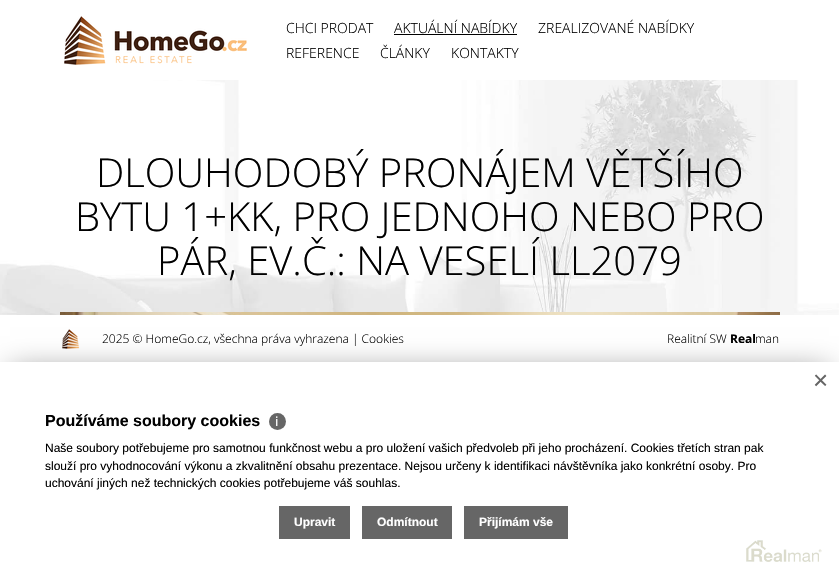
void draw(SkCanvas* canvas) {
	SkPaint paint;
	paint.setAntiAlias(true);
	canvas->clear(0xffffffff);
	canvas->drawImageRect(SkImages::DeferredFromEncodedData(SkData::MakeFromFileName("img1.png")), SkRect::MakeXYWH(64, 16, 183, 49), SkSamplingOptions());
	SkFont f1(fontMgr->matchFamilyStyle("Open Sans", SkFontStyle(300, SkFontStyle::kNormal_Width, SkFontStyle::kUpright_Slant)), 14);
	f1.setSubpixel(true);
	paint.setColor(0xff000000);
	canvas->drawString("CHCI PRODAT", 286, 33, f1, paint);
	canvas->drawString("AKTUÁLNÍ NABÍDKY", 394, 33, f1, paint);
	canvas->drawRect(SkRect::MakeXYWH(394, 34, 123, 1), paint);
	canvas->drawString("ZREALIZOVANÉ NABÍDKY", 538, 33, f1, paint);
	canvas->drawString("REFERENCE", 286, 58, f1, paint);
	canvas->drawString("ČLÁNKY", 380, 58, f1, paint);
	canvas->drawString("KONTAKTY", 451, 58, f1, paint);
	canvas->drawImageRect(SkImages::DeferredFromEncodedData(SkData::MakeFromFileName("img2.png")), SkRect::MakeXYWH(0, 80, 839, 235), SkSamplingOptions());
	SkFont f2(fontMgr->matchFamilyStyle("Open Sans", SkFontStyle(300, SkFontStyle::kNormal_Width, SkFontStyle::kUpright_Slant)), 40);
	f2.setSubpixel(true);
	canvas->drawString("DLOUHODOBÝ PRONÁJEM VĚTŠÍHO", 96, 187, f2, paint);
	canvas->drawString("BYTU 1+KK, PRO JEDNOHO NEBO PRO", 75, 231, f2, paint);
	canvas->drawString("PÁR, EV.Č.: NA VESELÍ LL2079", 157, 275, f2, paint);
	canvas->drawImageRect(SkImages::DeferredFromEncodedData(SkData::MakeFromFileName("img3.png")), SkRect::MakeXYWH(60, 312, 720, 3), SkSamplingOptions());
	canvas->drawImageRect(SkImages::DeferredFromEncodedData(SkData::MakeFromFileName("img4.png")), SkRect::MakeXYWH(62, 329, 18, 20), SkSamplingOptions());
	SkFont f3(fontMgr->matchFamilyStyle("Open Sans", SkFontStyle(300, SkFontStyle::kNormal_Width, SkFontStyle::kUpright_Slant)), 12);
	f3.setSubpixel(true);
	canvas->drawString("2025 © HomeGo.cz, všechna práva vyhrazena | Cookies", 102, 343, f3, paint);
	canvas->drawString("Realitní SW", 667, 343, f3, paint);
	SkFont f4(fontMgr->matchFamilyStyle("Open Sans", SkFontStyle::Bold()), 12);
	f4.setSubpixel(true);
	canvas->drawString("Real", 730, 343, f4, paint);
	canvas->drawString("man", 755, 343, f3, paint);
	paint.setColor(0x80000000);
	paint.setMaskFilter(SkMaskFilter::MakeBlur(kNormal_SkBlurStyle, 15));
	canvas->drawRect(SkRect::MakeXYWH(10, 372, 819, 197), paint);
	paint.setMaskFilter(nullptr);
	paint.setColor(0xffffffff);
	canvas->drawRect(SkRect::MakeXYWH(0, 362, 839, 217), paint);
	canvas->drawImageRect(SkImages::DeferredFromEncodedData(SkData::MakeFromFileName("img5.png")), SkRect::MakeXYWH(746, 540, 76, 22), SkSamplingOptions());
	SkFont f5(fontMgr->matchFamilyStyle("Liberation Sans", SkFontStyle::Normal()), 26);
	f5.setSubpixel(true);
	paint.setColor(0xff666666);
	canvas->drawString("×", 813, 389, f5, paint);
	SkFont f6(fontMgr->matchFamilyStyle("Liberation Sans", SkFontStyle::Bold()), 16);
	f6.setSubpixel(true);
	paint.setColor(0xff000000);
	canvas->drawString("Používáme soubory cookies", 45, 426, f6, paint);
	paint.setColor(0xff666666);
	canvas->drawCircle(277.5, 421.5, 8.5, paint);
	SkFont f7(fontMgr->matchFamilyStyle("Noto Sans", SkFontStyle::Normal()), 13);
	f7.setSubpixel(true);
	paint.setColor(0xffffffff);
	canvas->drawString("ℹ", 275, 426, f7, paint);
	SkFont f8(fontMgr->matchFamilyStyle("Liberation Sans", SkFontStyle::Normal()), 12);
	f8.setSubpixel(true);
	paint.setColor(0xff000000);
	canvas->drawString("Naše soubory potřebujeme pro samotnou funkčnost webu a pro uložení vašich předvoleb při jeho procházení. Cookies třetích stran pak", 45, 452, f8, paint);
	canvas->drawString("slouží pro vyhodnocování výkonu a zkvalitnění obsahu prezentace. Nejsou určeny k identifikaci návštěvníka jako konkrétní osoby. Pro", 45, 470, f8, paint);
	canvas->drawString("uchování jiných než technických cookies potřebujeme váš souhlas.", 45, 487, f8, paint);
	paint.setColor(0xff666666);
	canvas->drawRect(SkRect::MakeXYWH(279, 506, 71, 33), paint);
	SkFont f9(fontMgr->matchFamilyStyle("Liberation Sans", SkFontStyle::Bold()), 12);
	f9.setSubpixel(true);
	paint.setColor(0xffffffff);
	canvas->drawString("Upravit", 294, 526, f9, paint);
	paint.setColor(0xff666666);
	canvas->drawRect(SkRect::MakeXYWH(362, 506, 90, 33), paint);
	paint.setColor(0xffffffff);
	canvas->drawString("Odmítnout", 377, 526, f9, paint);
	paint.setColor(0xff666666);
	canvas->drawRect(SkRect::MakeXYWH(464, 506, 104, 33), paint);
	paint.setColor(0xffffffff);
	canvas->drawString("Přijímám vše", 479, 526, f9, paint);
}
